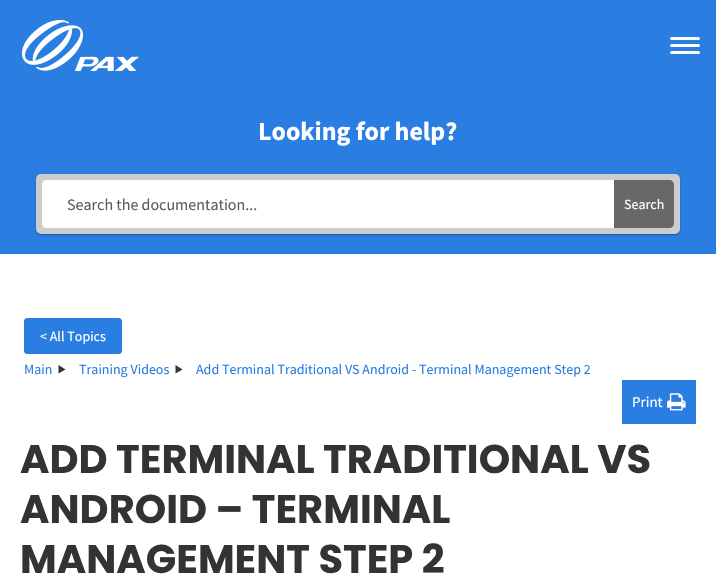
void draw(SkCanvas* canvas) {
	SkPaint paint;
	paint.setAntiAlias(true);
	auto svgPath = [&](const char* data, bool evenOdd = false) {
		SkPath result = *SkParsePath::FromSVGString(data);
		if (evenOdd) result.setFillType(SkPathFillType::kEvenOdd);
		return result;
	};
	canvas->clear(0xffffffff);
	paint.setColor(0xff2a7de1);
	canvas->drawRect(SkRect::MakeXYWH(0, 0, 716, 254), paint);
	canvas->drawImageRect(SkImages::DeferredFromEncodedData(SkData::MakeFromFileName("img1.png")), SkRect::MakeXYWH(21, 20, 118, 51), SkSamplingOptions());
	paint.setColor(0xffffffff);
	canvas->drawRoundRect(SkRect::MakeXYWH(670, 37, 30, 3), 1.5, 1.5, paint);
	canvas->drawRoundRect(SkRect::MakeXYWH(670, 44, 30, 3), 1.5, 1.5, paint);
	canvas->drawRoundRect(SkRect::MakeXYWH(670, 51, 30, 3), 1.5, 1.5, paint);
	SkFont f1(fontMgr->matchFamilyStyle("Source Sans Pro", SkFontStyle::Bold()), 26);
	f1.setSubpixel(true);
	canvas->drawString("Looking for help?", 258, 140, f1, paint);
	paint.setColor(0x52000000);
	paint.setMaskFilter(SkMaskFilter::MakeBlur(kNormal_SkBlurStyle, 1));
	canvas->drawRoundRect(SkRect::MakeXYWH(36, 175, 644, 60), 5, 5, paint);
	paint.setMaskFilter(nullptr);
	paint.setColor(0xffcccccc);
	canvas->drawRoundRect(SkRect::MakeXYWH(36, 174, 644, 60), 5, 5, paint);
	paint.setColor(0xffffffff);
	canvas->drawPath(svgPath("M47 180H614V228H47C44 228 42 226 42 223V185C42 182 44 180 47 180Z"), paint);
	SkFont f2(fontMgr->matchFamilyStyle("Source Sans Pro", SkFontStyle::Normal()), 16);
	f2.setSubpixel(true);
	paint.setColor(0xff5c5c5c);
	canvas->drawString("Search the documentation...", 67, 210, f2, paint);
	paint.setColor(0xff686868);
	canvas->drawPath(svgPath("M614 180H669C672 180 674 182 674 185V223C674 226 672 228 669 228H614Z"), paint);
	SkFont f3(fontMgr->matchFamilyStyle("Source Sans Pro", SkFontStyle::Normal()), 14);
	f3.setSubpixel(true);
	paint.setColor(0xffffffff);
	canvas->drawString("Search", 624, 209, f3, paint);
	paint.setColor(0xff2a7de1);
	canvas->drawRoundRect(SkRect::MakeXYWH(24.5, 318.5, 97, 35), 2.5, 2.5, paint);
	paint.setStroke(true);
	paint.setStrokeWidth(1);
	canvas->drawRoundRect(SkRect::MakeXYWH(24.5, 318.5, 97, 35), 2.5, 2.5, paint);
	paint.setStroke(false);
	paint.setColor(0xffffffff);
	canvas->drawString("< All Topics", 40, 341, f3, paint);
	paint.setColor(0xff2a7de1);
	canvas->drawString("Main", 24, 374, f3, paint);
	paint.setColor(0xff333333);
	canvas->drawPath(svgPath("M58.5 365L65.5 369.5L58.5 373.5Z"), paint);
	paint.setColor(0xff2a7de1);
	canvas->drawString("Training Videos", 79, 374, f3, paint);
	paint.setColor(0xff333333);
	canvas->drawPath(svgPath("M175.5 365L182.5 369.5L175.5 373.5Z"), paint);
	paint.setColor(0xff2a7de1);
	canvas->drawString("Add Terminal Traditional VS Android - Terminal Management Step 2", 196, 374, f3, paint);
	canvas->drawRect(SkRect::MakeXYWH(622, 380, 74, 44), paint);
	SkFont f4(fontMgr->matchFamilyStyle("Source Sans Pro", SkFontStyle::Normal()), 15);
	f4.setSubpixel(true);
	paint.setColor(0xffffffff);
	canvas->drawString("Print", 632, 407, f4, paint);
	canvas->drawImageRect(SkImages::DeferredFromEncodedData(SkData::MakeFromFileName("img2.png")), SkRect::MakeXYWH(667, 393, 19, 18), SkSamplingOptions());
	SkFont f5(fontMgr->matchFamilyStyle("Poppins", SkFontStyle::Bold()), 40);
	f5.setSubpixel(true);
	paint.setColor(0xff333333);
	canvas->drawString("ADD TERMINAL TRADITIONAL VS", 20, 473, f5, paint);
	canvas->drawString("ANDROID – TERMINAL", 20, 523, f5, paint);
	canvas->drawString("MANAGEMENT STEP 2", 20, 573, f5, paint);
}
